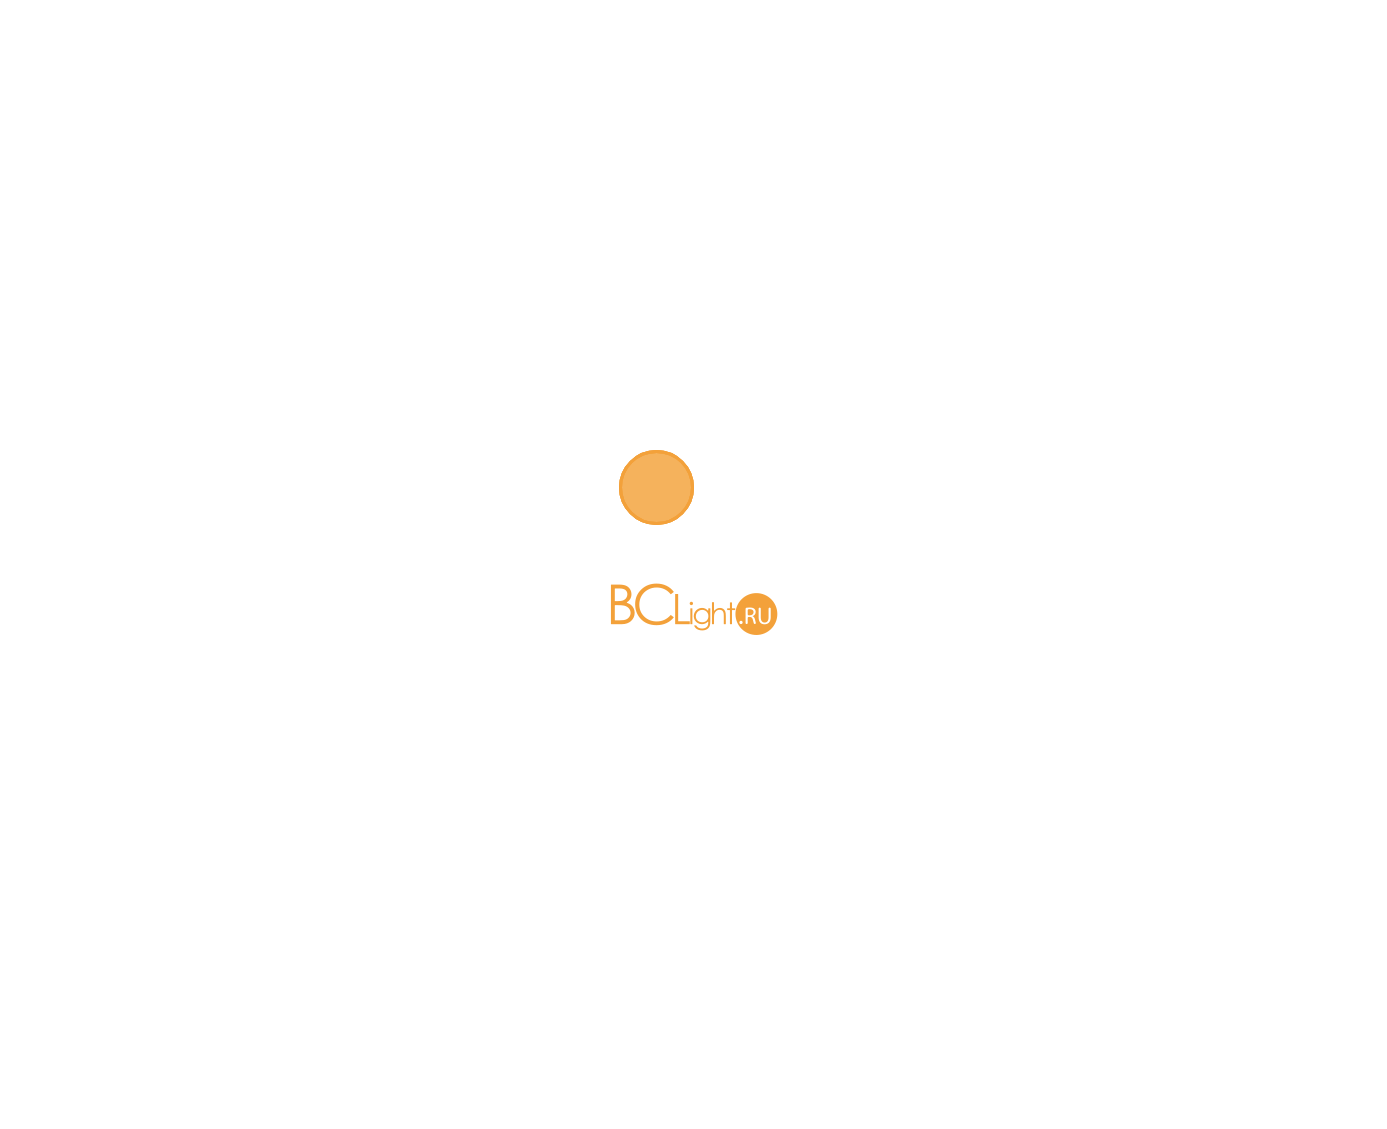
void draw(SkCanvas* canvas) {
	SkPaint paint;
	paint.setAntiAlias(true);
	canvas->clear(0xffffffff);
	paint.setColor(0xfffdecd8);
	canvas->drawCircle(656.5, 487.5, 36, paint);
	paint.setStroke(true);
	paint.setStrokeWidth(3);
	paint.setColor(0xfff3a13a);
	canvas->drawCircle(656.5, 487.5, 36, paint);
	paint.setStroke(false);
	paint.setColor(0x78f3a13a);
	canvas->drawCircle(656.5, 487.5, 36, paint);
	paint.setStroke(true);
	paint.setColor(0xfff3a13a);
	canvas->drawCircle(656.5, 487.5, 36, paint);
	paint.setStroke(false);
	paint.setColor(0x99f3a13a);
	canvas->drawCircle(656.5, 487.5, 36, paint);
	paint.setStroke(true);
	paint.setColor(0xfff3a13a);
	canvas->drawCircle(656.5, 487.5, 36, paint);
	canvas->drawImageRect(SkImages::DeferredFromEncodedData(SkData::MakeFromFileName("img1.png")), SkRect::MakeXYWH(610, 583, 168, 52), SkSamplingOptions());
}
